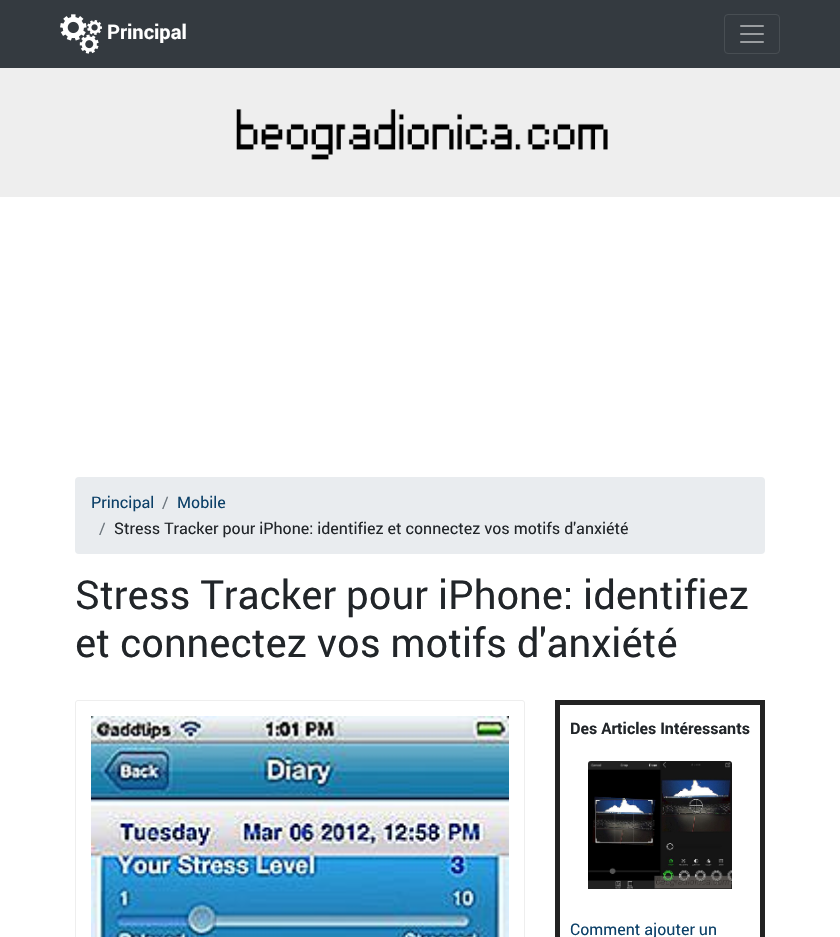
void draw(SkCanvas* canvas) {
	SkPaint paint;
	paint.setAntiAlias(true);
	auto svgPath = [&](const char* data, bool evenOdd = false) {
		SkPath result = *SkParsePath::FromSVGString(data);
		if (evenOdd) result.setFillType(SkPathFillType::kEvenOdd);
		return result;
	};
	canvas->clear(0xffffffff);
	paint.setColor(0xff343a40);
	canvas->drawRect(SkRect::MakeXYWH(0, 0, 840, 68), paint);
	canvas->drawImageRect(SkImages::DeferredFromEncodedData(SkData::MakeFromFileName("img1.png")), SkRect::MakeXYWH(60, 14, 42, 40), SkSamplingOptions());
	SkFont f1(fontMgr->matchFamilyStyle("Roboto", SkFontStyle::Bold()), 20);
	f1.setSubpixel(true);
	paint.setColor(0xffffffff);
	canvas->drawString("Principal", 107, 39, f1, paint);
	paint.setStroke(true);
	paint.setStrokeWidth(1);
	paint.setColor(0xff484e53);
	canvas->drawRoundRect(SkRect::MakeXYWH(724.5, 14.5, 55, 39), 3.5, 3.5, paint);
	canvas->drawImageRect(SkImages::DeferredFromEncodedData(SkData::MakeFromFileName("img2.png")), SkRect::MakeXYWH(740, 25, 24, 18), SkSamplingOptions());
	paint.setStroke(false);
	paint.setColor(0xffeeeeee);
	canvas->drawRect(SkRect::MakeXYWH(0, 68, 840, 129), paint);
	canvas->drawImageRect(SkImages::DeferredFromEncodedData(SkData::MakeFromFileName("img3.png")), SkRect::MakeXYWH(236, 109, 372, 51), SkSamplingOptions());
	paint.setColor(0xffe9ecef);
	canvas->drawRoundRect(SkRect::MakeXYWH(75, 477, 690, 77), 4, 4, paint);
	SkFont f2(fontMgr->matchFamilyStyle("Roboto", SkFontStyle::Normal()), 16);
	f2.setSubpixel(true);
	paint.setColor(0xff0c4068);
	canvas->drawString("Principal", 91, 508, f2, paint);
	paint.setColor(0xff6c757d);
	canvas->drawString("/", 162, 508, f2, paint);
	paint.setColor(0xff0c4068);
	canvas->drawString("Mobile", 177, 508, f2, paint);
	paint.setColor(0xff6c757d);
	canvas->drawString("/", 99, 534, f2, paint);
	paint.setColor(0xff212529);
	canvas->drawString("Stress Tracker pour iPhone: identifiez et connectez vos motifs d'anxiété", 114, 534, f2, paint);
	SkFont f3(fontMgr->matchFamilyStyle("Roboto", SkFontStyle::Normal()), 40);
	f3.setSubpixel(true);
	canvas->drawString("Stress Tracker pour iPhone: identifiez", 75, 609, f3, paint);
	canvas->drawString("et connectez vos motifs d'anxiété", 75, 657, f3, paint);
	paint.setStroke(true);
	paint.setColor(0xffeeeeee);
	canvas->drawPath(svgPath("M78 700.5H522C523.5 700.5 524.5 701.5 524.5 703V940.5H75.5V703C75.5 701.5 76.5 700.5 78 700.5Z"), paint);
	canvas->drawImageRect(SkImages::DeferredFromEncodedData(SkData::MakeFromFileName("img4.png")), SkRect::MakeXYWH(91, 716, 418, 221), SkSamplingOptions());
	paint.setStrokeWidth(5);
	paint.setColor(0xff222222);
	canvas->drawRect(SkRect::MakeXYWH(557.5, 702.5, 205, 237), paint);
	SkFont f4(fontMgr->matchFamilyStyle("Roboto", SkFontStyle::Bold()), 16);
	f4.setSubpixel(true);
	paint.setStroke(false);
	paint.setColor(0xff212529);
	canvas->drawString("Des Articles Intéressants", 570, 734, f4, paint);
	canvas->drawImageRect(SkImages::DeferredFromEncodedData(SkData::MakeFromFileName("img5.png")), SkRect::MakeXYWH(588, 761, 144, 128), SkSamplingOptions());
	paint.setColor(0xff0c4068);
	canvas->drawString("Comment ajouter un", 570, 935, f2, paint);
}
